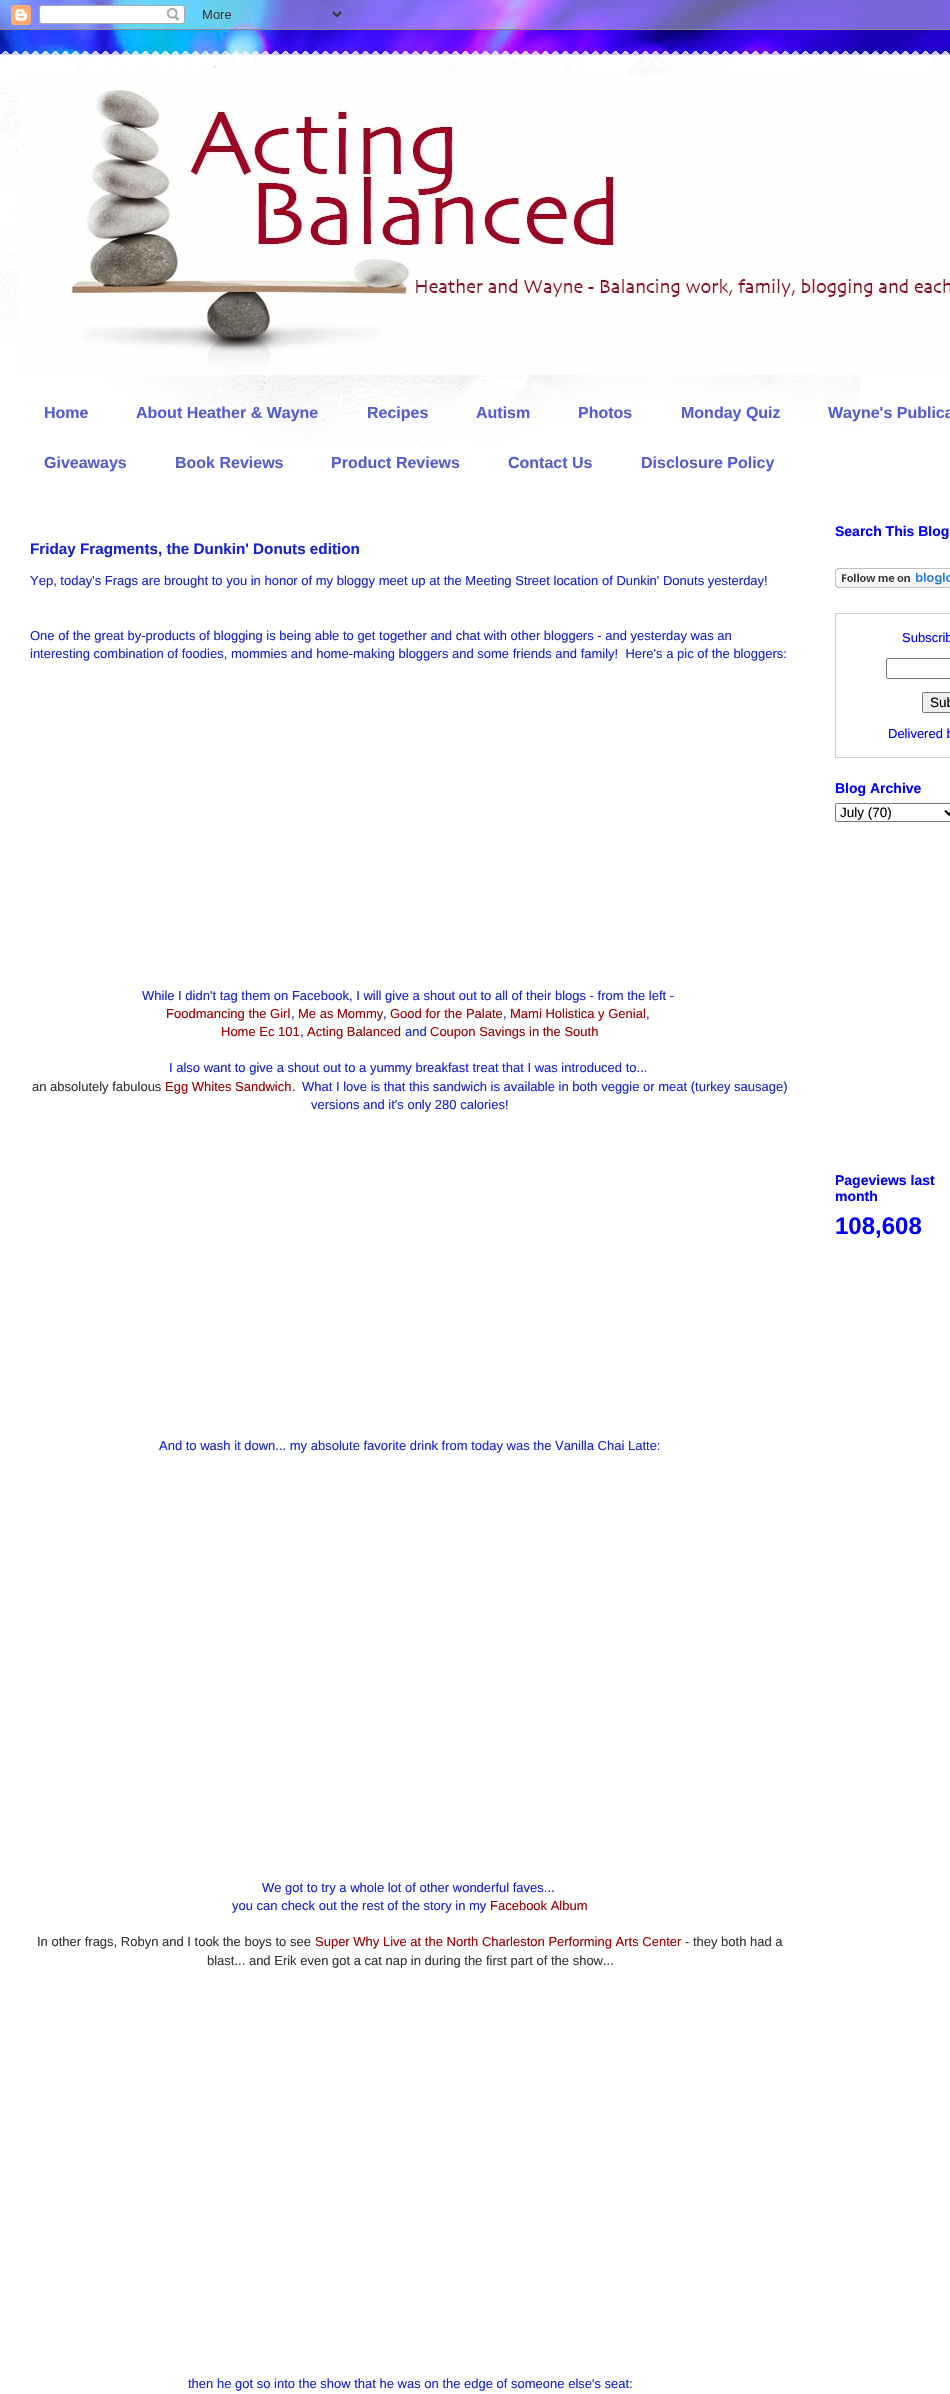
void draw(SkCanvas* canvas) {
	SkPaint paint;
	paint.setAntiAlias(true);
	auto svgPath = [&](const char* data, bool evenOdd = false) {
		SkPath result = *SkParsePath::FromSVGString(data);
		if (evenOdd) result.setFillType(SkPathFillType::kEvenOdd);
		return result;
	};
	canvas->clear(0xffffffff);
	canvas->drawImageRect(SkImages::DeferredFromEncodedData(SkData::MakeFromFileName("img1.png")), SkRect::MakeXYWH(0, 0, 950, 55), SkSamplingOptions());
	canvas->drawImageRect(SkImages::DeferredFromEncodedData(SkData::MakeFromFileName("img2.png")), SkRect::MakeXYWH(0, 0, 950, 30), SkSamplingOptions());
	canvas->drawImageRect(SkImages::DeferredFromEncodedData(SkData::MakeFromFileName("img3.png")), SkRect::MakeXYWH(0, 51, 950, 4), SkSamplingOptions());
	canvas->drawImageRect(SkImages::DeferredFromEncodedData(SkData::MakeFromFileName("img4.png")), SkRect::MakeXYWH(0, 55, 950, 392), SkSamplingOptions());
	canvas->drawImageRect(SkImages::DeferredFromEncodedData(SkData::MakeFromFileName("img5.png")), SkRect::MakeXYWH(20, 75, 930, 300), SkSamplingOptions());
	SkFont f1(fontMgr->matchFamilyStyle("Liberation Sans", SkFontStyle::Bold()), 16);
	f1.setSubpixel(true);
	paint.setColor(0xff535dcd);
	canvas->drawString("Home", 44, 418, f1, paint);
	canvas->drawString("About Heather & Wayne", 136, 418, f1, paint);
	canvas->drawString("Recipes", 367, 418, f1, paint);
	canvas->drawString("Autism", 476, 418, f1, paint);
	canvas->drawString("Photos", 578, 418, f1, paint);
	canvas->drawString("Monday Quiz", 681, 418, f1, paint);
	canvas->drawString("Wayne's Publica", 828, 418, f1, paint);
	canvas->drawString("Giveaways", 44, 468, f1, paint);
	canvas->drawString("Book Reviews", 175, 468, f1, paint);
	canvas->drawString("Product Reviews", 331, 468, f1, paint);
	canvas->drawString("Contact Us", 508, 468, f1, paint);
	canvas->drawString("Disclosure Policy", 641, 468, f1, paint);
	SkFont f2(fontMgr->matchFamilyStyle("Liberation Sans", SkFontStyle::Bold()), 15.25);
	f2.setSubpixel(true);
	paint.setColor(0xff1624cd);
	canvas->drawString("Friday Fragments, the Dunkin' Donuts edition", 30, 554, f2, paint);
	SkFont f3(fontMgr->matchFamilyStyle("Liberation Sans", SkFontStyle::Normal()), 13);
	f3.setSubpixel(true);
	canvas->drawString("Yep, today's Frags are brought to you in honor of my bloggy meet up at the Meeting Street location of Dunkin' Donuts yesterday!", 30, 585, f3, paint);
	canvas->drawString("One of the great by-products of blogging is being able to get together and chat with other bloggers - and yesterday was an", 30, 640, f3, paint);
	canvas->drawString("interesting combination of foodies, mommies and home-making bloggers and some friends and family!  Here's a pic of the bloggers:", 30, 658, f3, paint);
	canvas->drawString("While I didn't tag them on Facebook, I will give a shout out to all of their blogs - from the left -", 142, 1000, f3, paint);
	paint.setColor(0xff990000);
	canvas->drawString("Foodmancing the Girl", 166, 1018, f3, paint);
	paint.setColor(0xff1624cd);
	canvas->drawString(",", 291, 1018, f3, paint);
	paint.setColor(0xff990000);
	canvas->drawString("Me as Mommy", 298, 1018, f3, paint);
	paint.setColor(0xff1624cd);
	canvas->drawString(",", 383, 1018, f3, paint);
	paint.setColor(0xff990000);
	canvas->drawString("Good for the Palate", 390, 1018, f3, paint);
	paint.setColor(0xff1624cd);
	canvas->drawString(",", 503, 1018, f3, paint);
	paint.setColor(0xff990000);
	canvas->drawString("Mami Holistica y Genial", 510, 1018, f3, paint);
	paint.setColor(0xff1624cd);
	canvas->drawString(",", 646, 1018, f3, paint);
	paint.setColor(0xff990000);
	canvas->drawString("Home Ec 101", 221, 1036, f3, paint);
	paint.setColor(0xff1624cd);
	canvas->drawString(",", 300, 1036, f3, paint);
	paint.setColor(0xff990000);
	canvas->drawString("Acting Balanced", 307, 1036, f3, paint);
	paint.setColor(0xff1624cd);
	canvas->drawString("and", 405, 1036, f3, paint);
	paint.setColor(0xff990000);
	canvas->drawString("Coupon Savings in the South", 430, 1036, f3, paint);
	paint.setColor(0xff1624cd);
	canvas->drawString("I also want to give a shout out to a yummy breakfast treat that I was introduced to...", 169, 1072, f3, paint);
	paint.setColor(0xff333333);
	canvas->drawString("an absolutely fabulous", 32, 1091, f3, paint);
	paint.setColor(0xff990000);
	canvas->drawString("Egg Whites Sandwich", 165, 1091, f3, paint);
	paint.setColor(0xff333333);
	canvas->drawString(".", 292, 1091, f3, paint);
	paint.setColor(0xff1624cd);
	canvas->drawString("What I love is that this sandwich is available in both veggie or meat (turkey sausage)", 302, 1091, f3, paint);
	canvas->drawString("versions and it's only 280 calories!", 311, 1109, f3, paint);
	canvas->drawString("And to wash it down... my absolute favorite drink from today was the Vanilla Chai Latte:", 159, 1450, f3, paint);
	canvas->drawString("We got to try a whole lot of other wonderful faves...", 262, 1892, f3, paint);
	canvas->drawString("you can check out the rest of the story in my", 232, 1910, f3, paint);
	paint.setColor(0xff990000);
	canvas->drawString("Facebook Album", 490, 1910, f3, paint);
	paint.setColor(0xff333333);
	canvas->drawString("In other frags, Robyn and I took the boys to see", 37, 1946, f3, paint);
	paint.setColor(0xff990000);
	canvas->drawString("Super Why Live at the North Charleston Performing Arts Center", 315, 1946, f3, paint);
	paint.setColor(0xff333333);
	canvas->drawString("- they both had a", 685, 1946, f3, paint);
	canvas->drawString("blast... and Erik even got a cat nap in during the first part of the show...", 207, 1965, f3, paint);
	paint.setColor(0xff1624cd);
	canvas->drawString("then he got so into the show that he was on the edge of someone else's seat:", 188, 2388, f3, paint);
	SkFont f4(fontMgr->matchFamilyStyle("Liberation Sans", SkFontStyle::Bold()), 14);
	f4.setSubpixel(true);
	paint.setColor(0xff0000ff);
	canvas->drawString("Search This Blog", 835, 536, f4, paint);
	canvas->drawImageRect(SkImages::DeferredFromEncodedData(SkData::MakeFromFileName("img6.png")), SkRect::MakeXYWH(835, 568, 115, 20), SkSamplingOptions());
	paint.setStroke(true);
	paint.setStrokeWidth(1);
	paint.setColor(0xffcccccc);
	canvas->drawRect(SkRect::MakeXYWH(835.5, 613.5, 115, 144), paint);
	paint.setStroke(false);
	paint.setColor(0xff0000ff);
	canvas->drawString("Subscrib", 902, 642, f3, paint);
	paint.setStroke(true);
	paint.setColor(0xff767676);
	canvas->drawRoundRect(SkRect::MakeXYWH(886.5, 658.5, 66, 20), 1.5, 1.5, paint);
	paint.setStroke(false);
	paint.setColor(0xffefefef);
	canvas->drawRoundRect(SkRect::MakeXYWH(922.5, 692.5, 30, 20), 1.5, 1.5, paint);
	paint.setStroke(true);
	paint.setColor(0xff767676);
	canvas->drawRoundRect(SkRect::MakeXYWH(922.5, 692.5, 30, 20), 1.5, 1.5, paint);
	SkFont f5(fontMgr->matchFamilyStyle("Liberation Sans", SkFontStyle::Normal()), 13.5);
	f5.setSubpixel(true);
	paint.setStroke(false);
	paint.setColor(0xff000000);
	canvas->drawString("Sub", 930, 707, f5, paint);
	paint.setColor(0xff0000ff);
	canvas->drawString("Delivered b", 888, 738, f3, paint);
	canvas->drawString("Blog Archive", 835, 793, f4, paint);
	paint.setStroke(true);
	paint.setColor(0xff767676);
	canvas->drawRoundRect(SkRect::MakeXYWH(835.5, 803.5, 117, 18), 1.5, 1.5, paint);
	paint.setStrokeWidth(2);
	paint.setColor(0xff000000);
	canvas->drawPath(svgPath("M945 810.5L949 814.5L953 810.5"), paint);
	paint.setStroke(false);
	canvas->drawString("July (70)", 840, 817, f5, paint);
	paint.setColor(0xff0000ff);
	canvas->drawString("Pageviews last", 835, 1185, f4, paint);
	canvas->drawString("month", 835, 1201, f4, paint);
	SkFont f6(fontMgr->matchFamilyStyle("Liberation Sans", SkFontStyle::Bold()), 24);
	f6.setSubpixel(true);
	canvas->drawString("108,608", 835, 1234, f6, paint);
}
